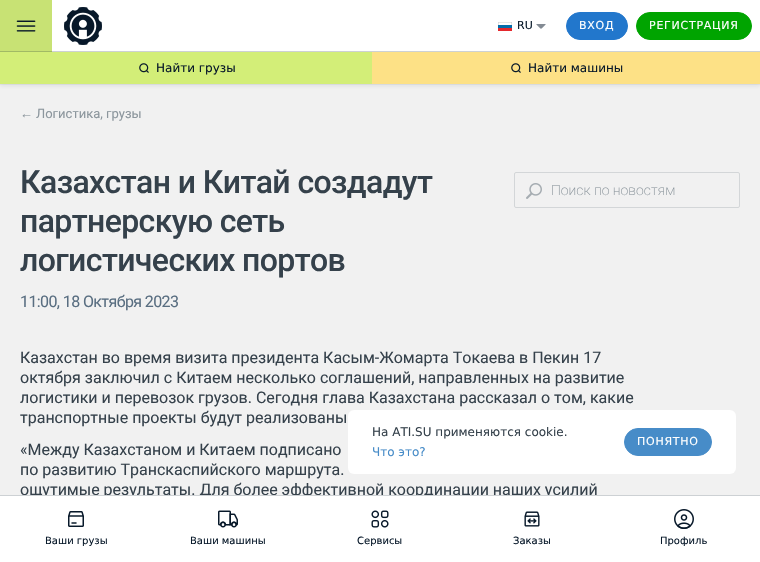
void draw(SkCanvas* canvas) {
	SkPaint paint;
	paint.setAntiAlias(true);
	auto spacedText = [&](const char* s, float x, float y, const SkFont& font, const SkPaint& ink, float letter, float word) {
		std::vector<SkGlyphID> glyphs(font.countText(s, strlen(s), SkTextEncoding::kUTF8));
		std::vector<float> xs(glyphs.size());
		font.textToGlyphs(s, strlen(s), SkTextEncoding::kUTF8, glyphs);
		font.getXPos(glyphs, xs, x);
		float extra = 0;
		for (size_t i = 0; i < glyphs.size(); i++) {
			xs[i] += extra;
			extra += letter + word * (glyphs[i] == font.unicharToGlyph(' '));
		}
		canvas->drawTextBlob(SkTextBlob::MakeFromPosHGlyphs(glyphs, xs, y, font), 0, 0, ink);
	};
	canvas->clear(0xfff1f1f1);
	paint.setColor(0xffe6e8ea);
	canvas->drawRect(SkRect::MakeXYWH(0, 84, 760, 1), paint);
	paint.setColor(0x14071829);
	paint.setMaskFilter(SkMaskFilter::MakeBlur(kNormal_SkBlurStyle, 2));
	canvas->drawRect(SkRect::MakeXYWH(0, 54, 760, 32), paint);
	paint.setMaskFilter(nullptr);
	paint.setColor(0xffffffff);
	canvas->drawRect(SkRect::MakeXYWH(52, 0, 708, 51), paint);
	paint.setColor(0xffcdd1d4);
	canvas->drawRect(SkRect::MakeXYWH(52, 51, 708, 1), paint);
	paint.setColor(0xffd3ee78);
	canvas->drawRect(SkRect::MakeXYWH(0, 0, 52, 51), paint);
	paint.setColor(0xffaac368);
	canvas->drawRect(SkRect::MakeXYWH(0, 51, 52, 1), paint);
	canvas->drawImageRect(SkImages::DeferredFromEncodedData(SkData::MakeFromFileName("img1.png")), SkRect::MakeXYWH(16, 20, 20, 12), SkSamplingOptions());
	paint.setColor(0x0d071829);
	canvas->drawRect(SkRect::MakeXYWH(0, 0, 52, 52), paint);
	canvas->drawImageRect(SkImages::DeferredFromEncodedData(SkData::MakeFromFileName("img2.png")), SkRect::MakeXYWH(64, 7, 38, 38), SkSamplingOptions());
	canvas->drawImageRect(SkImages::DeferredFromEncodedData(SkData::MakeFromFileName("img3.png")), SkRect::MakeXYWH(498, 22, 14, 9), SkSamplingOptions());
	SkFont f1(fontMgr->matchFamilyStyle("DejaVu Sans", SkFontStyle::Normal()), 11);
	f1.setSubpixel(true);
	paint.setColor(0xff071829);
	canvas->drawString("RU", 517, 29, f1, paint);
	canvas->drawImageRect(SkImages::DeferredFromEncodedData(SkData::MakeFromFileName("img4.png")), SkRect::MakeXYWH(536, 24, 10, 5), SkSamplingOptions());
	paint.setColor(0xff2277cc);
	canvas->drawRoundRect(SkRect::MakeXYWH(566.5, 12.5, 61, 27), 13.5, 13.5, paint);
	paint.setStroke(true);
	paint.setStrokeWidth(1);
	canvas->drawRoundRect(SkRect::MakeXYWH(566.5, 12.5, 61, 27), 13.5, 13.5, paint);
	paint.setStroke(false);
	paint.setColor(0xffffffff);
	spacedText("ВХОД", 579, 29, f1, paint, 0.75, 0);
	paint.setColor(0xff00a400);
	canvas->drawRoundRect(SkRect::MakeXYWH(636.5, 12.5, 115, 27), 13.5, 13.5, paint);
	paint.setStroke(true);
	canvas->drawRoundRect(SkRect::MakeXYWH(636.5, 12.5, 115, 27), 13.5, 13.5, paint);
	paint.setStroke(false);
	paint.setColor(0xffffffff);
	spacedText("РЕГИСТРАЦИЯ", 649, 29, f1, paint, 0.75, 0);
	paint.setColor(0xffd3ee78);
	canvas->drawRect(SkRect::MakeXYWH(0, 52, 372, 32), paint);
	canvas->drawImageRect(SkImages::DeferredFromEncodedData(SkData::MakeFromFileName("img5.png")), SkRect::MakeXYWH(139, 63, 10, 10), SkSamplingOptions());
	SkFont f2(fontMgr->matchFamilyStyle("DejaVu Sans", SkFontStyle::Normal()), 12);
	f2.setSubpixel(true);
	paint.setColor(0xff071829);
	canvas->drawString("Найти грузы", 156, 72, f2, paint);
	paint.setColor(0xfffde186);
	canvas->drawRect(SkRect::MakeXYWH(372, 52, 388, 32), paint);
	canvas->drawImageRect(SkImages::DeferredFromEncodedData(SkData::MakeFromFileName("img6.png")), SkRect::MakeXYWH(511, 63, 10, 10), SkSamplingOptions());
	paint.setColor(0xff071829);
	canvas->drawString("Найти машины", 528, 72, f2, paint);
	paint.setColor(0xffffffff);
	canvas->drawRoundRect(SkRect::MakeXYWH(348, 410, 388, 64), 6, 6, paint);
	paint.setColor(0xff35414b);
	canvas->drawString("На ATI.SU применяются cookie.", 372, 436, f2, paint);
	paint.setColor(0xff478cc8);
	canvas->drawString("Что это?", 372, 456, f2, paint);
	canvas->drawRoundRect(SkRect::MakeXYWH(624.5, 428.5, 87, 27), 13.5, 13.5, paint);
	paint.setStroke(true);
	canvas->drawRoundRect(SkRect::MakeXYWH(624.5, 428.5, 87, 27), 13.5, 13.5, paint);
	paint.setStroke(false);
	paint.setColor(0xffffffff);
	spacedText("ПОНЯТНО", 637, 445, f1, paint, 0.75, 0);
	SkFont f3(fontMgr->matchFamilyStyle("Roboto", SkFontStyle::Normal()), 16);
	f3.setSubpixel(true);
	paint.setColor(0xff35414b);
	canvas->drawString("ощутимые результаты. Для более эффективной координации наших усилий", 20, 495, f3, paint);
	paint.setColor(0xffffffff);
	canvas->drawRect(SkRect::MakeXYWH(0, 496, 760, 66), paint);
	paint.setColor(0xffcdd1d4);
	canvas->drawRect(SkRect::MakeXYWH(0, 495, 760, 1), paint);
	canvas->drawImageRect(SkImages::DeferredFromEncodedData(SkData::MakeFromFileName("img7.png")), SkRect::MakeXYWH(68, 511, 16, 16), SkSamplingOptions());
	SkFont f4(fontMgr->matchFamilyStyle("DejaVu Sans", SkFontStyle::Normal()), 10);
	f4.setSubpixel(true);
	paint.setColor(0xff071829);
	canvas->drawString("Ваши грузы", 45, 544, f4, paint);
	canvas->drawImageRect(SkImages::DeferredFromEncodedData(SkData::MakeFromFileName("img8.png")), SkRect::MakeXYWH(218, 510, 20, 18), SkSamplingOptions());
	canvas->drawString("Ваши машины", 190, 544, f4, paint);
	canvas->drawImageRect(SkImages::DeferredFromEncodedData(SkData::MakeFromFileName("img9.png")), SkRect::MakeXYWH(371, 510, 18, 18), SkSamplingOptions());
	canvas->drawString("Сервисы", 357, 544, f4, paint);
	canvas->drawImageRect(SkImages::DeferredFromEncodedData(SkData::MakeFromFileName("img10.png")), SkRect::MakeXYWH(524, 511, 16, 16), SkSamplingOptions());
	canvas->drawString("Заказы", 513, 544, f4, paint);
	canvas->drawImageRect(SkImages::DeferredFromEncodedData(SkData::MakeFromFileName("img11.png")), SkRect::MakeXYWH(674, 509, 20, 20), SkSamplingOptions());
	canvas->drawString("Профиль", 660, 544, f4, paint);
	SkFont f5(fontMgr->matchFamilyStyle("Liberation Sans", SkFontStyle::Normal()), 13);
	f5.setSubpixel(true);
	paint.setColor(0xff8c969d);
	canvas->drawString("←", 20, 118, f5, paint);
	SkFont f6(fontMgr->matchFamilyStyle("Roboto", SkFontStyle::Normal()), 13);
	f6.setSubpixel(true);
	canvas->drawString("Логистика, грузы", 36, 118, f6, paint);
	SkFont f7(fontMgr->matchFamilyStyle("Roboto", SkFontStyle(500, SkFontStyle::kNormal_Width, SkFontStyle::kUpright_Slant)), 32);
	f7.setSubpixel(true);
	paint.setColor(0xff35414b);
	spacedText("Казахстан и Китай создадут", 20, 193, f7, paint, -0.6, 0);
	spacedText("партнерскую сеть", 20, 232, f7, paint, -0.6, 0);
	spacedText("логистических портов", 20, 271, f7, paint, -0.6, 0);
	paint.setColor(0xff596e81);
	spacedText("11:00, 18 Октября 2023", 20, 307, f3, paint, -0.6, 0);
	paint.setStroke(true);
	paint.setColor(0xffd3d6d8);
	canvas->drawRoundRect(SkRect::MakeXYWH(514.5, 172.5, 225, 35), 1.5, 1.5, paint);
	canvas->drawImageRect(SkImages::DeferredFromEncodedData(SkData::MakeFromFileName("img12.png")), SkRect::MakeXYWH(526, 183, 16, 16), SkSamplingOptions());
	SkFont f8(fontMgr->matchFamilyStyle("Roboto", SkFontStyle(200, SkFontStyle::kNormal_Width, SkFontStyle::kUpright_Slant)), 14);
	f8.setSubpixel(true);
	paint.setStroke(false);
	paint.setColor(0xff8c969d);
	canvas->drawString("Поиск по новостям", 551, 195, f8, paint);
	paint.setColor(0xff35414b);
	canvas->drawString("Казахстан во время визита президента Касым-Жомарта Токаева в Пекин 17", 20, 363, f3, paint);
	canvas->drawString("октября заключил с Китаем несколько соглашений, направленных на развитие", 20, 383, f3, paint);
	canvas->drawString("логистики и перевозок грузов. Сегодня глава Казахстана рассказал о том, какие", 20, 403, f3, paint);
	canvas->drawString("транспортные проекты будут реализованы", 20, 423, f3, paint);
	canvas->drawString("«Между Казахстаном и Китаем подписано", 20, 455, f3, paint);
	canvas->drawString("по развитию Транскаспийского маршрута.", 20, 475, f3, paint);
}
